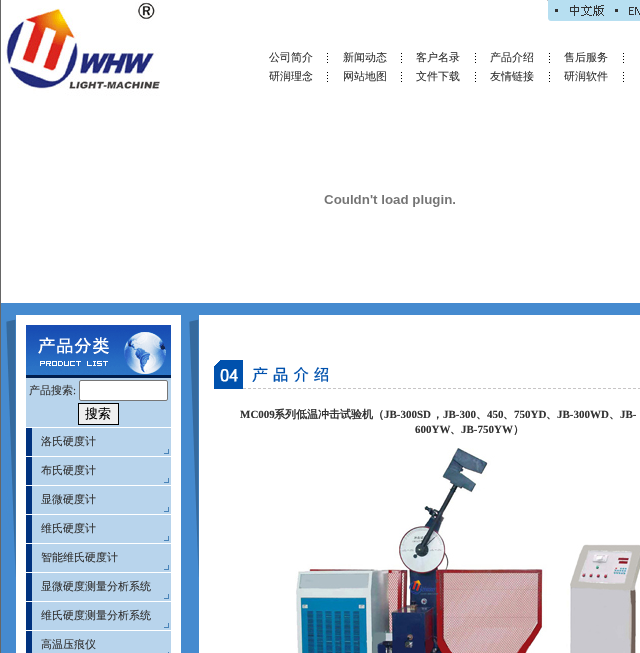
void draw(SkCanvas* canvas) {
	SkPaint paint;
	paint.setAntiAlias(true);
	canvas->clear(0xffffffff);
	paint.setColor(0xff666666);
	canvas->drawRect(SkRect::MakeXYWH(0, 0, 1, 653), paint);
	canvas->drawImageRect(SkImages::DeferredFromEncodedData(SkData::MakeFromFileName("img1.png")), SkRect::MakeXYWH(3, 2, 157, 94), SkSamplingOptions());
	canvas->drawImageRect(SkImages::DeferredFromEncodedData(SkData::MakeFromFileName("img2.png")), SkRect::MakeXYWH(547, 0, 18, 21), SkSamplingOptions());
	canvas->drawImageRect(SkImages::DeferredFromEncodedData(SkData::MakeFromFileName("img3.png")), SkRect::MakeXYWH(565, 0, 42, 21), SkSamplingOptions());
	canvas->drawImageRect(SkImages::DeferredFromEncodedData(SkData::MakeFromFileName("img4.png")), SkRect::MakeXYWH(607, 0, 18, 21), SkSamplingOptions());
	canvas->drawImageRect(SkImages::DeferredFromEncodedData(SkData::MakeFromFileName("img5.png")), SkRect::MakeXYWH(625, 0, 15, 21), SkSamplingOptions());
	SkFont f1(fontMgr->matchFamilyStyle("WenQuanYi Zen Hei", SkFontStyle(500, SkFontStyle::kNormal_Width, SkFontStyle::kUpright_Slant)), 11);
	f1.setSubpixel(true);
	paint.setColor(0xff333333);
	canvas->drawString("公司简介", 269, 61, f1, paint);
	canvas->drawImageRect(SkImages::DeferredFromEncodedData(SkData::MakeFromFileName("img6.png")), SkRect::MakeXYWH(327, 53, 1, 10), SkSamplingOptions());
	canvas->drawString("新闻动态", 343, 61, f1, paint);
	canvas->drawImageRect(SkImages::DeferredFromEncodedData(SkData::MakeFromFileName("img6.png")), SkRect::MakeXYWH(401, 53, 1, 10), SkSamplingOptions());
	canvas->drawString("客户名录", 416, 61, f1, paint);
	canvas->drawImageRect(SkImages::DeferredFromEncodedData(SkData::MakeFromFileName("img6.png")), SkRect::MakeXYWH(475, 53, 1, 10), SkSamplingOptions());
	canvas->drawString("产品介绍", 490, 61, f1, paint);
	canvas->drawImageRect(SkImages::DeferredFromEncodedData(SkData::MakeFromFileName("img6.png")), SkRect::MakeXYWH(549, 53, 1, 10), SkSamplingOptions());
	canvas->drawString("售后服务", 564, 61, f1, paint);
	canvas->drawImageRect(SkImages::DeferredFromEncodedData(SkData::MakeFromFileName("img6.png")), SkRect::MakeXYWH(623, 53, 1, 10), SkSamplingOptions());
	canvas->drawString("研润理念", 269, 80, f1, paint);
	canvas->drawImageRect(SkImages::DeferredFromEncodedData(SkData::MakeFromFileName("img6.png")), SkRect::MakeXYWH(327, 72, 1, 10), SkSamplingOptions());
	canvas->drawString("网站地图", 343, 80, f1, paint);
	canvas->drawImageRect(SkImages::DeferredFromEncodedData(SkData::MakeFromFileName("img6.png")), SkRect::MakeXYWH(401, 72, 1, 10), SkSamplingOptions());
	canvas->drawString("文件下载", 416, 80, f1, paint);
	canvas->drawImageRect(SkImages::DeferredFromEncodedData(SkData::MakeFromFileName("img6.png")), SkRect::MakeXYWH(475, 72, 1, 10), SkSamplingOptions());
	canvas->drawString("友情链接", 490, 80, f1, paint);
	canvas->drawImageRect(SkImages::DeferredFromEncodedData(SkData::MakeFromFileName("img6.png")), SkRect::MakeXYWH(549, 72, 1, 10), SkSamplingOptions());
	canvas->drawString("研润软件", 564, 80, f1, paint);
	canvas->drawImageRect(SkImages::DeferredFromEncodedData(SkData::MakeFromFileName("img6.png")), SkRect::MakeXYWH(623, 72, 1, 10), SkSamplingOptions());
	canvas->drawImageRect(SkImages::DeferredFromEncodedData(SkData::MakeFromFileName("img7.png")), SkRect::MakeXYWH(324, 195, 131, 12), SkSamplingOptions());
	paint.setColor(0xff458acf);
	canvas->drawRect(SkRect::MakeXYWH(1, 303, 639, 350), paint);
	canvas->drawImageRect(SkImages::DeferredFromEncodedData(SkData::MakeFromFileName("img8.png")), SkRect::MakeXYWH(6, 319, 10, 258), SkSamplingOptions());
	paint.setColor(0xffffffff);
	canvas->drawRect(SkRect::MakeXYWH(16, 315, 165, 338), paint);
	canvas->drawImageRect(SkImages::DeferredFromEncodedData(SkData::MakeFromFileName("img9.png")), SkRect::MakeXYWH(26, 325, 145, 53), SkSamplingOptions());
	paint.setColor(0xffb8d4ec);
	canvas->drawRect(SkRect::MakeXYWH(26, 378, 145, 49), paint);
	paint.setColor(0xff333333);
	canvas->drawString("产品搜索", 29, 394, f1, paint);
	SkFont f2(fontMgr->matchFamilyStyle("Liberation Serif", SkFontStyle::Normal()), 11);
	f2.setSubpixel(true);
	canvas->drawString(":", 73, 394, f2, paint);
	paint.setColor(0xffffffff);
	canvas->drawRoundRect(SkRect::MakeXYWH(79.5, 380.5, 88, 20), 1.5, 1.5, paint);
	paint.setStroke(true);
	paint.setStrokeWidth(1);
	paint.setColor(0xff767676);
	canvas->drawRoundRect(SkRect::MakeXYWH(79.5, 380.5, 88, 20), 1.5, 1.5, paint);
	paint.setStroke(false);
	paint.setColor(0xffefefef);
	canvas->drawRect(SkRect::MakeXYWH(78.5, 403.5, 40, 21), paint);
	paint.setStroke(true);
	paint.setColor(0xff000000);
	canvas->drawRect(SkRect::MakeXYWH(78.5, 403.5, 40, 21), paint);
	SkFont f3(fontMgr->matchFamilyStyle("WenQuanYi Zen Hei", SkFontStyle(500, SkFontStyle::kNormal_Width, SkFontStyle::kUpright_Slant)), 13);
	f3.setSubpixel(true);
	paint.setStroke(false);
	canvas->drawString("搜索", 85, 418, f3, paint);
	canvas->drawImageRect(SkImages::DeferredFromEncodedData(SkData::MakeFromFileName("img10.png")), SkRect::MakeXYWH(26, 428, 145, 225), SkSamplingOptions());
	paint.setColor(0xff333333);
	canvas->drawString("洛氏硬度计", 41, 445, f1, paint);
	canvas->drawString("布氏硬度计", 41, 474, f1, paint);
	canvas->drawString("显微硬度计", 41, 503, f1, paint);
	canvas->drawString("维氏硬度计", 41, 532, f1, paint);
	canvas->drawString("智能维氏硬度计", 41, 561, f1, paint);
	canvas->drawString("显微硬度测量分析系统", 41, 590, f1, paint);
	canvas->drawString("维氏硬度测量分析系统", 41, 619, f1, paint);
	canvas->drawString("高温压痕仪", 41, 648, f1, paint);
	canvas->drawImageRect(SkImages::DeferredFromEncodedData(SkData::MakeFromFileName("img8.png")), SkRect::MakeXYWH(189, 319, 10, 258), SkSamplingOptions());
	paint.setColor(0xffffffff);
	canvas->drawRect(SkRect::MakeXYWH(199, 315, 441, 338), paint);
	canvas->drawImageRect(SkImages::DeferredFromEncodedData(SkData::MakeFromFileName("img11.png")), SkRect::MakeXYWH(214, 360, 426, 29), SkSamplingOptions());
	SkFont f4(fontMgr->matchFamilyStyle("Liberation Serif", SkFontStyle::Bold()), 11);
	f4.setSubpixel(true);
	paint.setColor(0xff333333);
	canvas->drawString("MC009", 240, 418, f4, paint);
	SkFont f5(fontMgr->matchFamilyStyle("WenQuanYi Zen Hei", SkFontStyle::Bold()), 11);
	f5.setSubpixel(true);
	canvas->drawString("系列低温冲击试验机（", 274, 418, f5, paint);
	canvas->drawString("JB-300SD", 384, 418, f4, paint);
	canvas->drawString("，", 432, 418, f5, paint);
	canvas->drawString("JB-300", 443, 418, f4, paint);
	canvas->drawString("、", 476, 418, f5, paint);
	canvas->drawString("450", 487, 418, f4, paint);
	canvas->drawString("、", 503, 418, f5, paint);
	canvas->drawString("750YD", 514, 418, f4, paint);
	canvas->drawString("、", 546, 418, f5, paint);
	canvas->drawString("JB-300WD", 557, 418, f4, paint);
	canvas->drawString("、", 609, 418, f5, paint);
	canvas->drawString("JB-", 620, 418, f4, paint);
	canvas->drawString("600YW", 415, 433, f4, paint);
	canvas->drawString("、", 450, 433, f5, paint);
	canvas->drawString("JB-750YW", 461, 433, f4, paint);
	canvas->drawString("）", 513, 433, f5, paint);
	canvas->drawImageRect(SkImages::DeferredFromEncodedData(SkData::MakeFromFileName("img12.png")), SkRect::MakeXYWH(295, 448, 345, 205), SkSamplingOptions());
}
